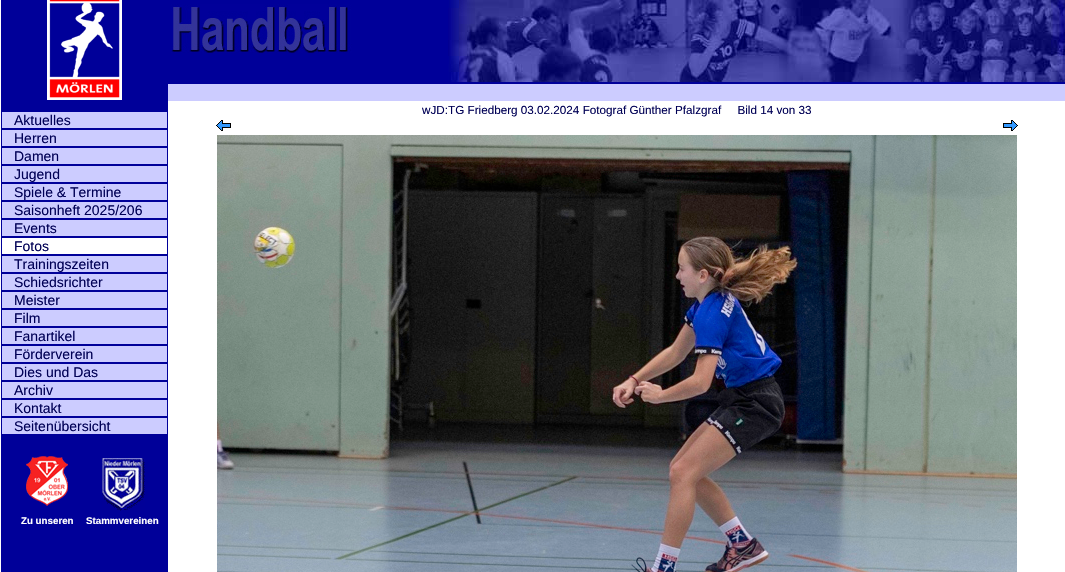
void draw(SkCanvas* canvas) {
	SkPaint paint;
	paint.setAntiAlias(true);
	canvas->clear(0xff000099);
	paint.setColor(0xffffffff);
	canvas->drawRect(SkRect::MakeXYWH(0, 0, 1, 572), paint);
	canvas->drawImageRect(SkImages::DeferredFromEncodedData(SkData::MakeFromFileName("img1.png")), SkRect::MakeXYWH(47, 0, 75, 100), SkSamplingOptions());
	canvas->drawImageRect(SkImages::DeferredFromEncodedData(SkData::MakeFromFileName("img2.png")), SkRect::MakeXYWH(171, 4, 181, 49), SkSamplingOptions());
	canvas->drawImageRect(SkImages::DeferredFromEncodedData(SkData::MakeFromFileName("img3.png")), SkRect::MakeXYWH(448, 0, 617, 82), SkSamplingOptions());
	paint.setColor(0xffccccff);
	canvas->drawRect(SkRect::MakeXYWH(168, 84, 897, 17), paint);
	paint.setColor(0xffffffff);
	canvas->drawRect(SkRect::MakeXYWH(168, 101, 897, 471), paint);
	SkFont f1(fontMgr->matchFamilyStyle("Liberation Sans", SkFontStyle::Normal()), 11.7);
	f1.setSubpixel(true);
	paint.setColor(0xff000055);
	canvas->drawString("wJD:TG Friedberg 03.02.2024 Fotograf Günther Pfalzgraf     Bild 14 von 33", 422, 114, f1, paint);
	canvas->drawImageRect(SkImages::DeferredFromEncodedData(SkData::MakeFromFileName("img4.png")), SkRect::MakeXYWH(216, 120, 15, 11), SkSamplingOptions());
	canvas->drawImageRect(SkImages::DeferredFromEncodedData(SkData::MakeFromFileName("img5.png")), SkRect::MakeXYWH(1003, 120, 15, 11), SkSamplingOptions());
	canvas->drawImageRect(SkImages::DeferredFromEncodedData(SkData::MakeFromFileName("img6.png")), SkRect::MakeXYWH(217, 135, 800, 437), SkSamplingOptions());
	paint.setColor(0xffccccff);
	canvas->drawRect(SkRect::MakeXYWH(2, 112, 165, 16), paint);
	SkFont f2(fontMgr->matchFamilyStyle("Liberation Sans", SkFontStyle::Normal()), 14);
	f2.setSubpixel(true);
	paint.setColor(0xff000055);
	canvas->drawString("Aktuelles", 14, 125, f2, paint);
	paint.setColor(0xffccccff);
	canvas->drawRect(SkRect::MakeXYWH(2, 130, 165, 16), paint);
	paint.setColor(0xff000055);
	canvas->drawString("Herren", 14, 143, f2, paint);
	paint.setColor(0xffccccff);
	canvas->drawRect(SkRect::MakeXYWH(2, 148, 165, 16), paint);
	paint.setColor(0xff000055);
	canvas->drawString("Damen", 14, 161, f2, paint);
	paint.setColor(0xffccccff);
	canvas->drawRect(SkRect::MakeXYWH(2, 166, 165, 16), paint);
	paint.setColor(0xff000055);
	canvas->drawString("Jugend", 14, 179, f2, paint);
	paint.setColor(0xffccccff);
	canvas->drawRect(SkRect::MakeXYWH(2, 184, 165, 16), paint);
	paint.setColor(0xff000055);
	canvas->drawString("Spiele & Termine", 14, 197, f2, paint);
	paint.setColor(0xffccccff);
	canvas->drawRect(SkRect::MakeXYWH(2, 202, 165, 16), paint);
	paint.setColor(0xff000055);
	canvas->drawString("Saisonheft 2025/206", 14, 215, f2, paint);
	paint.setColor(0xffccccff);
	canvas->drawRect(SkRect::MakeXYWH(2, 220, 165, 16), paint);
	paint.setColor(0xff000055);
	canvas->drawString("Events", 14, 233, f2, paint);
	paint.setColor(0xffffffff);
	canvas->drawRect(SkRect::MakeXYWH(2, 238, 165, 16), paint);
	paint.setColor(0xff000055);
	canvas->drawString("Fotos", 14, 251, f2, paint);
	paint.setColor(0xffccccff);
	canvas->drawRect(SkRect::MakeXYWH(2, 256, 165, 16), paint);
	paint.setColor(0xff000055);
	canvas->drawString("Trainingszeiten", 14, 269, f2, paint);
	paint.setColor(0xffccccff);
	canvas->drawRect(SkRect::MakeXYWH(2, 274, 165, 16), paint);
	paint.setColor(0xff000055);
	canvas->drawString("Schiedsrichter", 14, 287, f2, paint);
	paint.setColor(0xffccccff);
	canvas->drawRect(SkRect::MakeXYWH(2, 292, 165, 16), paint);
	paint.setColor(0xff000055);
	canvas->drawString("Meister", 14, 305, f2, paint);
	paint.setColor(0xffccccff);
	canvas->drawRect(SkRect::MakeXYWH(2, 310, 165, 16), paint);
	paint.setColor(0xff000055);
	canvas->drawString("Film", 14, 323, f2, paint);
	paint.setColor(0xffccccff);
	canvas->drawRect(SkRect::MakeXYWH(2, 328, 165, 16), paint);
	paint.setColor(0xff000055);
	canvas->drawString("Fanartikel", 14, 341, f2, paint);
	paint.setColor(0xffccccff);
	canvas->drawRect(SkRect::MakeXYWH(2, 346, 165, 16), paint);
	paint.setColor(0xff000055);
	canvas->drawString("Förderverein", 14, 359, f2, paint);
	paint.setColor(0xffccccff);
	canvas->drawRect(SkRect::MakeXYWH(2, 364, 165, 16), paint);
	paint.setColor(0xff000055);
	canvas->drawString("Dies und Das", 14, 377, f2, paint);
	paint.setColor(0xffccccff);
	canvas->drawRect(SkRect::MakeXYWH(2, 382, 165, 16), paint);
	paint.setColor(0xff000055);
	canvas->drawString("Archiv", 14, 395, f2, paint);
	paint.setColor(0xffccccff);
	canvas->drawRect(SkRect::MakeXYWH(2, 400, 165, 16), paint);
	paint.setColor(0xff000055);
	canvas->drawString("Kontakt", 14, 413, f2, paint);
	paint.setColor(0xffccccff);
	canvas->drawRect(SkRect::MakeXYWH(2, 418, 165, 16), paint);
	paint.setColor(0xff000055);
	canvas->drawString("Seitenübersicht", 14, 431, f2, paint);
	canvas->drawImageRect(SkImages::DeferredFromEncodedData(SkData::MakeFromFileName("img7.png")), SkRect::MakeXYWH(26, 456, 42, 50), SkSamplingOptions());
	canvas->drawImageRect(SkImages::DeferredFromEncodedData(SkData::MakeFromFileName("img8.png")), SkRect::MakeXYWH(102, 458, 43, 53), SkSamplingOptions());
	SkFont f3(fontMgr->matchFamilyStyle("Liberation Sans", SkFontStyle::Bold()), 9.75);
	f3.setSubpixel(true);
	paint.setColor(0xffffffff);
	canvas->drawString("Zu unseren", 21, 524, f3, paint);
	canvas->drawString("Stammvereinen", 86, 524, f3, paint);
}
